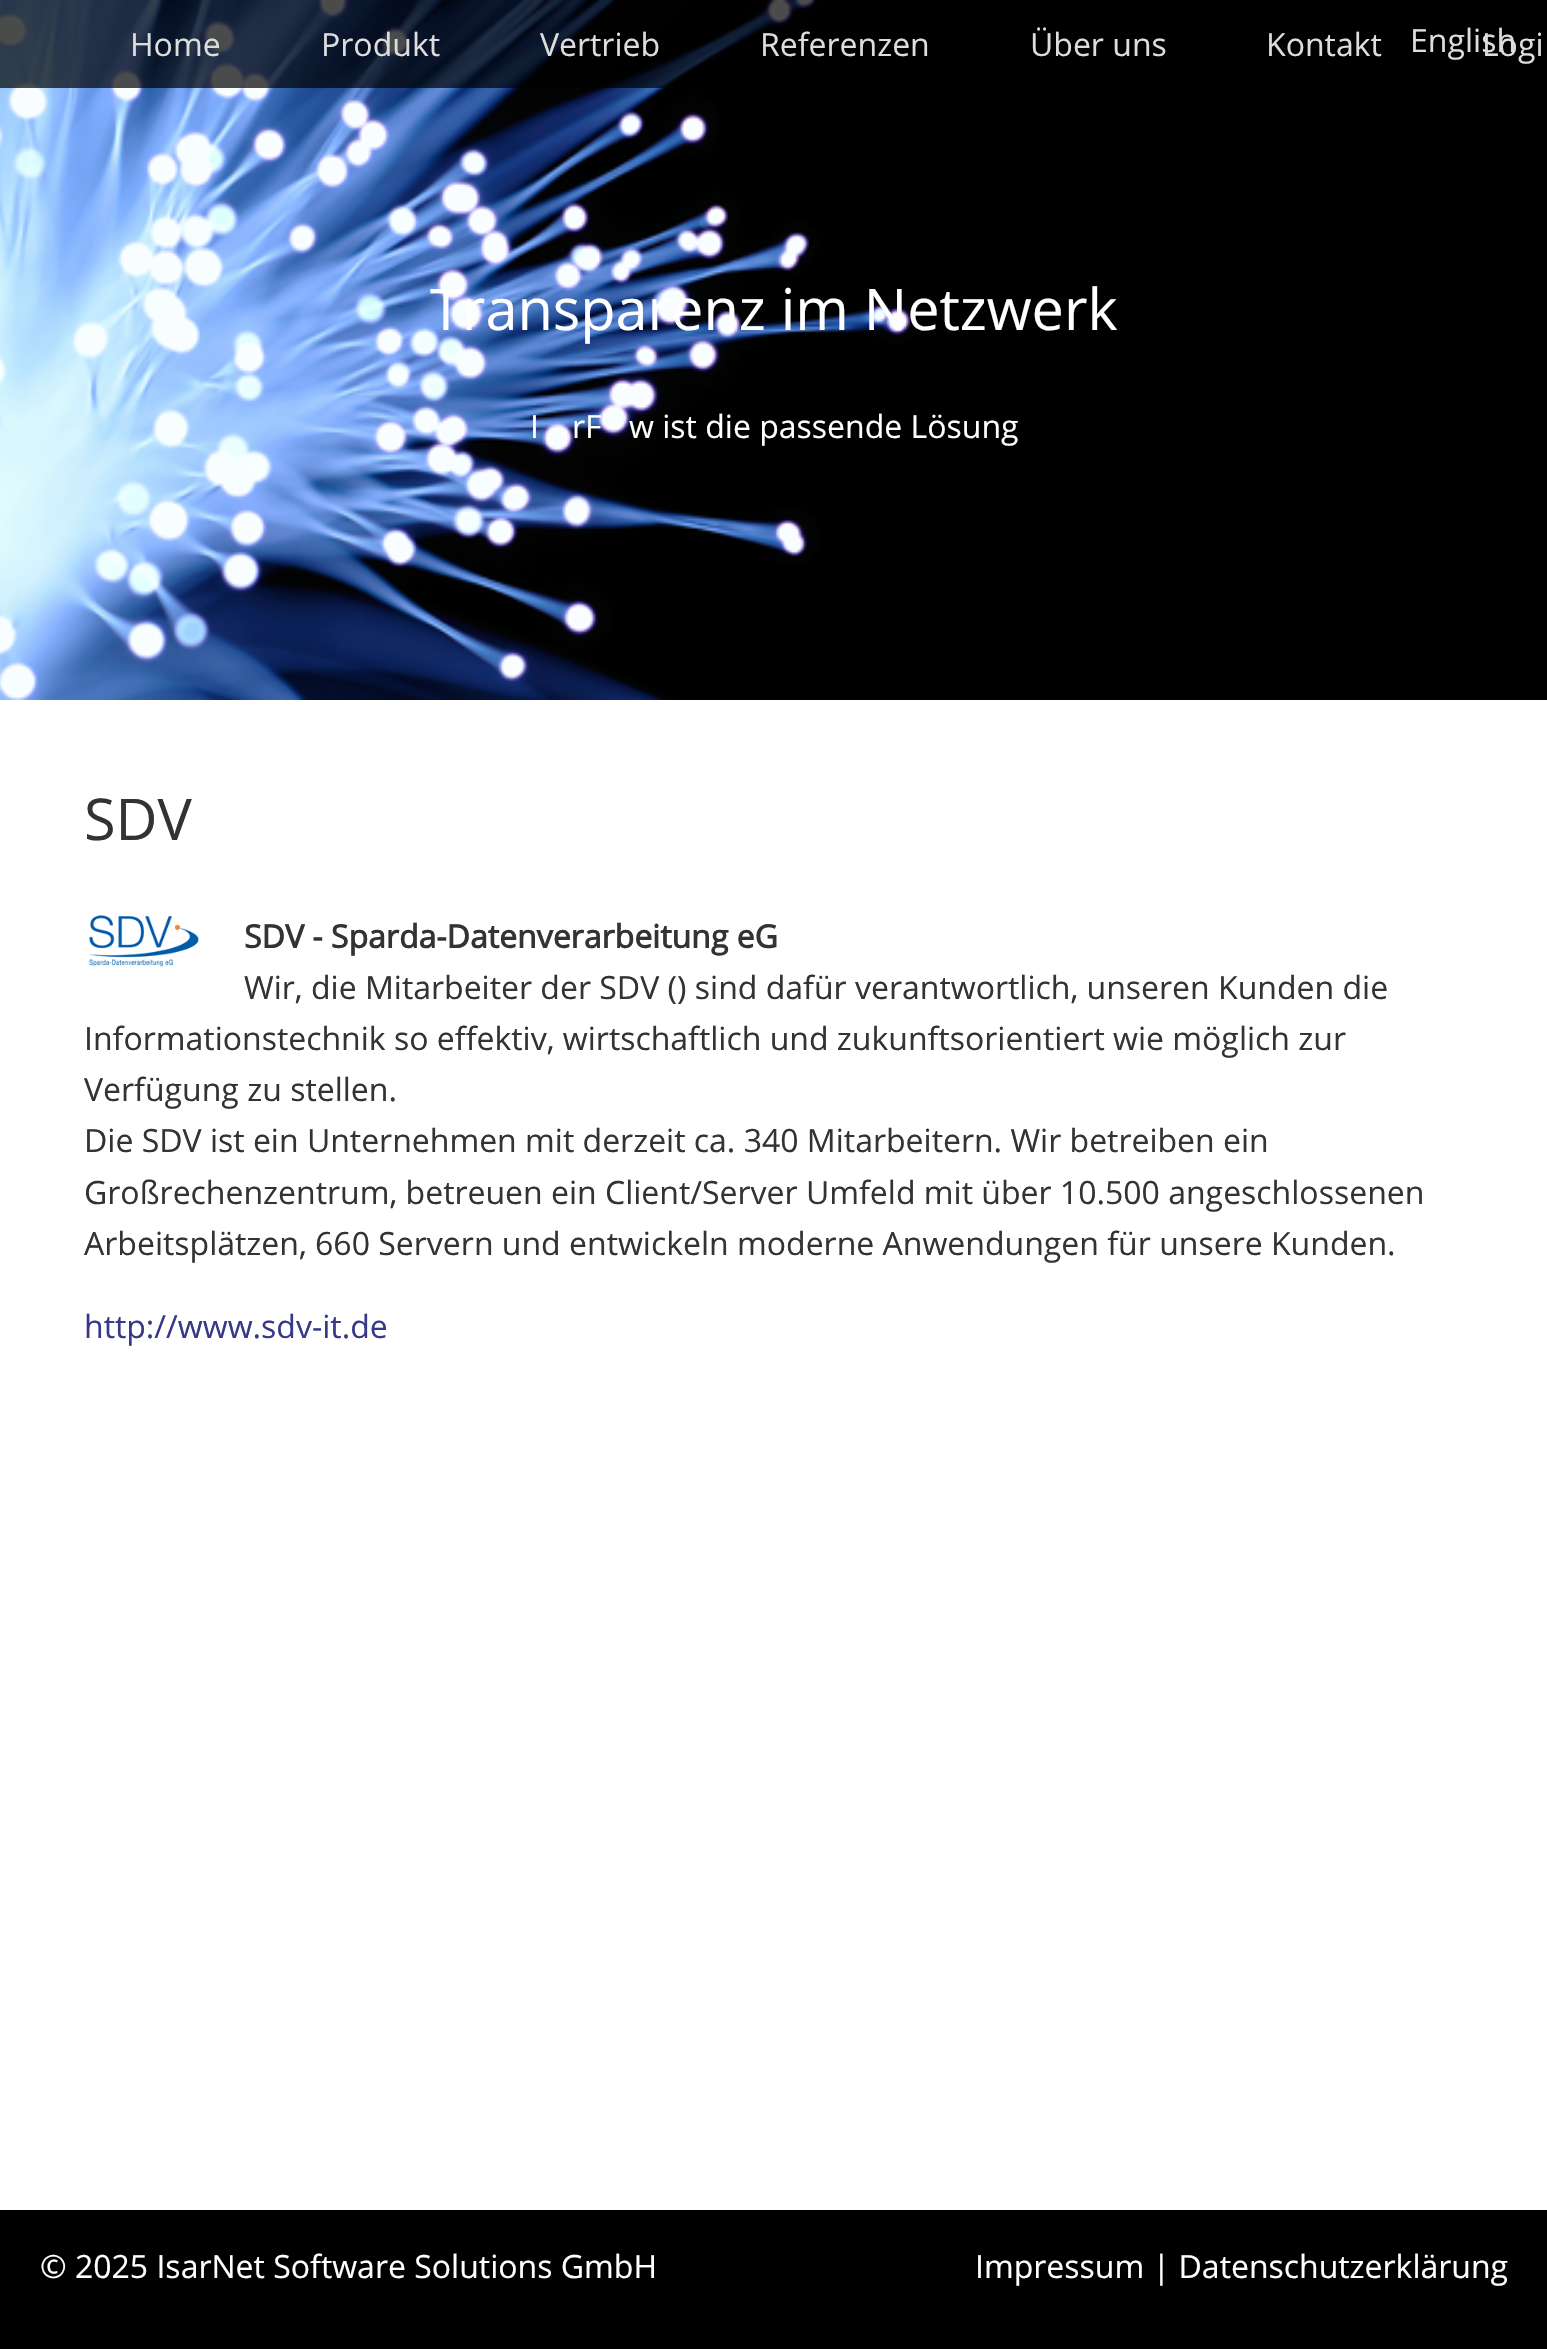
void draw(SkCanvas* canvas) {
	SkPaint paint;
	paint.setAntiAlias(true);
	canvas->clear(0xffffffff);
	canvas->drawImageRect(SkImages::DeferredFromEncodedData(SkData::MakeFromFileName("img1.png")), SkRect::MakeXYWH(0, 0, 1547, 700), SkSamplingOptions());
	paint.setColor(0xb3000000);
	canvas->drawRect(SkRect::MakeXYWH(0, 0, 817, 88), paint);
	SkFont f1(fontMgr->matchFamilyStyle("Open Sans", SkFontStyle::Normal()), 32);
	f1.setSubpixel(true);
	paint.setColor(0xffdddddd);
	canvas->drawString("Home", 130, 56, f1, paint);
	canvas->drawString("Produkt", 321, 56, f1, paint);
	canvas->drawString("Vertrieb", 540, 56, f1, paint);
	canvas->drawString("Referenzen", 760, 56, f1, paint);
	canvas->drawString("Über uns", 1030, 56, f1, paint);
	canvas->drawString("Kontakt", 1266, 56, f1, paint);
	canvas->drawString("Logi", 1482, 56, f1, paint);
	canvas->drawString("English", 1410, 52, f1, paint);
	SkFont f2(fontMgr->matchFamilyStyle("Open Sans", SkFontStyle::Normal()), 57.6);
	f2.setSubpixel(true);
	paint.setColor(0xffffffff);
	canvas->drawString("Transparenz im Netzwerk", 430, 330, f2, paint);
	canvas->drawString("I", 530, 438, f1, paint);
	canvas->drawString("rF", 572, 438, f1, paint);
	canvas->drawString("w ist die passende Lösung", 629, 438, f1, paint);
	paint.setColor(0xff333333);
	canvas->drawString("SDV", 84, 840, f2, paint);
	canvas->drawImageRect(SkImages::DeferredFromEncodedData(SkData::MakeFromFileName("img2.png")), SkRect::MakeXYWH(88, 915, 111, 52), SkSamplingOptions());
	SkFont f3(fontMgr->matchFamilyStyle("Open Sans", SkFontStyle::Bold()), 32);
	f3.setSubpixel(true);
	canvas->drawString("SDV - Sparda-Datenverarbeitung eG", 244, 948, f3, paint);
	canvas->drawString("Wir, die Mitarbeiter der SDV () sind dafür verantwortlich, unseren Kunden die", 244, 999, f1, paint);
	canvas->drawString("Informationstechnik so effektiv, wirtschaftlich und zukunftsorientiert wie möglich zur", 84, 1050, f1, paint);
	canvas->drawString("Verfügung zu stellen.", 84, 1101, f1, paint);
	canvas->drawString("Die SDV ist ein Unternehmen mit derzeit ca. 340 Mitarbeitern. Wir betreiben ein", 84, 1152, f1, paint);
	canvas->drawString("Großrechenzentrum, betreuen ein Client/Server Umfeld mit über 10.500 angeschlossenen", 84, 1204, f1, paint);
	canvas->drawString("Arbeitsplätzen, 660 Servern und entwickeln moderne Anwendungen für unsere Kunden.", 84, 1255, f1, paint);
	paint.setColor(0xff373988);
	canvas->drawString("http://www.sdv-it.de", 84, 1338, f1, paint);
	paint.setColor(0xff000000);
	canvas->drawRect(SkRect::MakeXYWH(0, 2210, 1547, 139), paint);
	paint.setColor(0xffffffff);
	canvas->drawString("© 2025 IsarNet Software Solutions GmbH", 40, 2278, f1, paint);
	canvas->drawString("Impressum | Datenschutzerklärung", 975, 2278, f1, paint);
}
